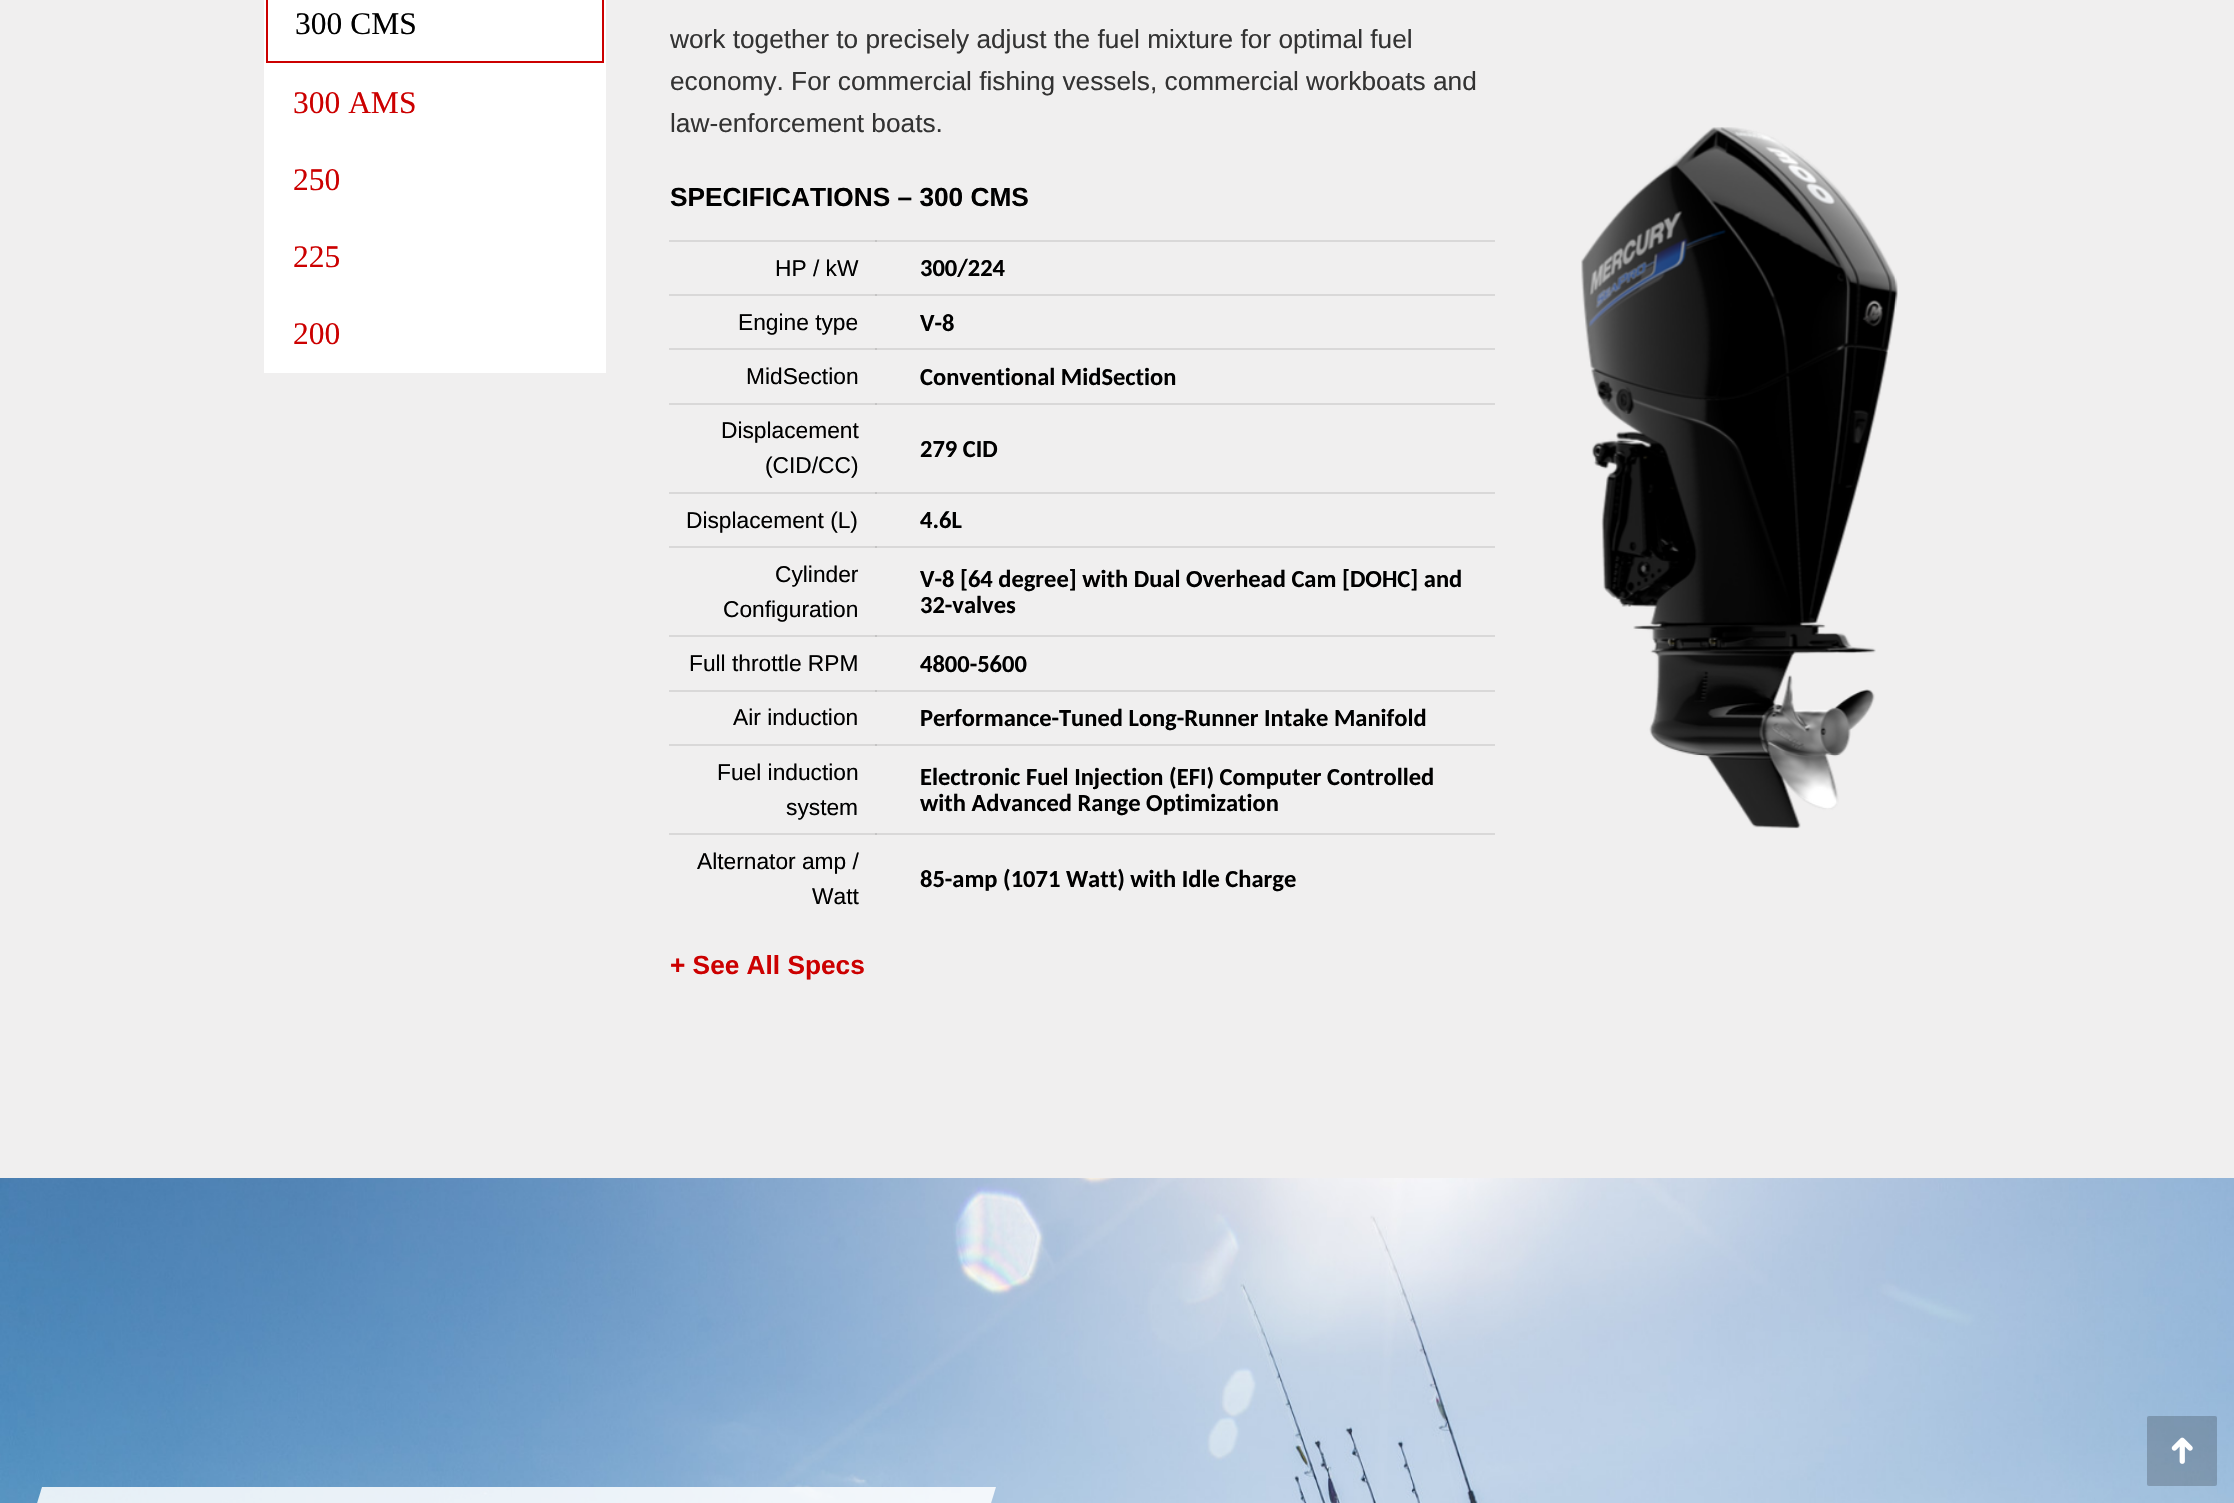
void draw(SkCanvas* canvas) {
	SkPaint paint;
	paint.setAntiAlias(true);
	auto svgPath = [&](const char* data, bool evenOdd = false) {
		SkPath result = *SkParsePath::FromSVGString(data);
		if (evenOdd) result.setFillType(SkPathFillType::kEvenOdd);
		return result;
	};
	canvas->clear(0xfff0efef);
	paint.setColor(0xffd9d8d8);
	canvas->drawRect(SkRect::MakeXYWH(669, 240, 826, 2), paint);
	canvas->drawRect(SkRect::MakeXYWH(669, 294, 826, 2), paint);
	canvas->drawRect(SkRect::MakeXYWH(669, 348, 826, 2), paint);
	canvas->drawRect(SkRect::MakeXYWH(669, 403, 826, 2), paint);
	canvas->drawRect(SkRect::MakeXYWH(669, 492, 826, 2), paint);
	canvas->drawRect(SkRect::MakeXYWH(669, 546, 826, 2), paint);
	canvas->drawRect(SkRect::MakeXYWH(669, 635, 826, 2), paint);
	canvas->drawRect(SkRect::MakeXYWH(669, 690, 826, 2), paint);
	canvas->drawRect(SkRect::MakeXYWH(669, 744, 826, 2), paint);
	canvas->drawRect(SkRect::MakeXYWH(669, 833, 826, 2), paint);
	paint.setColor(0xffffffff);
	canvas->drawRect(SkRect::MakeXYWH(264, 0, 342, 373), paint);
	paint.setStroke(true);
	paint.setStrokeWidth(2);
	paint.setColor(0xffcc0000);
	canvas->drawRect(SkRect::MakeXYWH(267, -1, 336, 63), paint);
	SkFont f1(fontMgr->matchFamilyStyle("Liberation Serif", SkFontStyle::Normal()), 31.5);
	f1.setSubpixel(true);
	paint.setStroke(false);
	paint.setColor(0xff000000);
	canvas->drawString("300 CMS", 295, 34, f1, paint);
	paint.setColor(0xffcc0000);
	canvas->drawString("300 AMS", 293, 113, f1, paint);
	canvas->drawString("250", 293, 190, f1, paint);
	canvas->drawString("225", 293, 267, f1, paint);
	canvas->drawString("200", 293, 344, f1, paint);
	SkFont f2(fontMgr->matchFamilyStyle("Liberation Sans", SkFontStyle::Normal()), 26.25);
	f2.setSubpixel(true);
	paint.setColor(0xff333333);
	canvas->drawString("work together to precisely adjust the fuel mixture for optimal fuel", 670, 48, f2, paint);
	canvas->drawString("economy. For commercial fishing vessels, commercial workboats and", 670, 90, f2, paint);
	canvas->drawString("law-enforcement boats.", 670, 132, f2, paint);
	SkFont f3(fontMgr->matchFamilyStyle("Liberation Sans", SkFontStyle::Bold()), 26.25);
	f3.setSubpixel(true);
	paint.setColor(0xff000000);
	canvas->drawString("SPECIFICATIONS – 300 CMS", 670, 206, f3, paint);
	SkFont f4(fontMgr->matchFamilyStyle("Liberation Sans", SkFontStyle::Normal()), 22.75);
	f4.setSubpixel(true);
	canvas->drawString("HP / kW", 775, 276, f4, paint);
	paint.setColor(0xffc5c4c4);
	canvas->drawRect(SkRect::MakeXYWH(875, 240, 2, 2), paint);
	SkFont f5(fontMgr->matchFamilyStyle("Carlito", SkFontStyle::Bold()), 24.5);
	f5.setSubpixel(true);
	paint.setColor(0xff000000);
	canvas->drawString("300/224", 920, 276, f5, paint);
	canvas->drawString("Engine type", 738, 330, f4, paint);
	paint.setColor(0xffc5c4c4);
	canvas->drawRect(SkRect::MakeXYWH(875, 294, 2, 2), paint);
	paint.setColor(0xff000000);
	canvas->drawString("V-8", 920, 331, f5, paint);
	canvas->drawString("MidSection", 746, 384, f4, paint);
	paint.setColor(0xffc5c4c4);
	canvas->drawRect(SkRect::MakeXYWH(875, 348, 2, 2), paint);
	paint.setColor(0xff000000);
	canvas->drawString("Conventional MidSection", 920, 385, f5, paint);
	canvas->drawString("Displacement", 721, 438, f4, paint);
	canvas->drawString("(CID/CC)", 765, 473, f4, paint);
	paint.setColor(0xffc5c4c4);
	canvas->drawRect(SkRect::MakeXYWH(875, 403, 2, 2), paint);
	paint.setColor(0xff000000);
	canvas->drawString("279 CID", 920, 457, f5, paint);
	canvas->drawString("Displacement (L)", 686, 528, f4, paint);
	paint.setColor(0xffc5c4c4);
	canvas->drawRect(SkRect::MakeXYWH(875, 492, 2, 2), paint);
	paint.setColor(0xff000000);
	canvas->drawString("4.6L", 920, 528, f5, paint);
	canvas->drawString("Cylinder", 775, 582, f4, paint);
	canvas->drawString("Configuration", 723, 617, f4, paint);
	paint.setColor(0xffc5c4c4);
	canvas->drawRect(SkRect::MakeXYWH(875, 546, 2, 2), paint);
	paint.setColor(0xff000000);
	canvas->drawString("V-8 [64 degree] with Dual Overhead Cam [DOHC] and", 920, 587, f5, paint);
	canvas->drawString("32-valves", 920, 613, f5, paint);
	canvas->drawString("Full throttle RPM", 689, 671, f4, paint);
	paint.setColor(0xffc5c4c4);
	canvas->drawRect(SkRect::MakeXYWH(875, 635, 2, 2), paint);
	paint.setColor(0xff000000);
	canvas->drawString("4800-5600", 920, 672, f5, paint);
	canvas->drawString("Air induction", 733, 725, f4, paint);
	paint.setColor(0xffc5c4c4);
	canvas->drawRect(SkRect::MakeXYWH(875, 690, 2, 2), paint);
	paint.setColor(0xff000000);
	canvas->drawString("Performance-Tuned Long-Runner Intake Manifold", 920, 726, f5, paint);
	canvas->drawString("Fuel induction", 717, 780, f4, paint);
	canvas->drawString("system", 786, 815, f4, paint);
	paint.setColor(0xffc5c4c4);
	canvas->drawRect(SkRect::MakeXYWH(875, 744, 2, 2), paint);
	paint.setColor(0xff000000);
	canvas->drawString("Electronic Fuel Injection (EFI) Computer Controlled", 920, 785, f5, paint);
	canvas->drawString("with Advanced Range Optimization", 920, 811, f5, paint);
	canvas->drawString("Alternator amp /", 697, 869, f4, paint);
	canvas->drawString("Watt", 812, 904, f4, paint);
	paint.setColor(0xffc5c4c4);
	canvas->drawRect(SkRect::MakeXYWH(875, 833, 2, 2), paint);
	paint.setColor(0xff000000);
	canvas->drawString("85-amp (1071 Watt) with Idle Charge", 920, 887, f5, paint);
	paint.setColor(0xffcc0000);
	canvas->drawString("+ See All Specs", 670, 974, f3, paint);
	canvas->drawImageRect(SkImages::DeferredFromEncodedData(SkData::MakeFromFileName("img1.png")), SkRect::MakeXYWH(1581, 127, 317, 702), SkSamplingOptions());
	canvas->drawImageRect(SkImages::DeferredFromEncodedData(SkData::MakeFromFileName("img2.png")), SkRect::MakeXYWH(0, 1178, 2234, 325), SkSamplingOptions());
	paint.setColor(0xd9ffffff);
	canvas->drawPath(svgPath("M42 1487H996L717 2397H-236Z"), paint);
	paint.setColor(0x33000000);
	canvas->drawRoundRect(SkRect::MakeXYWH(2147, 1416, 70, 70), 2, 2, paint);
	canvas->drawImageRect(SkImages::DeferredFromEncodedData(SkData::MakeFromFileName("img3.png")), SkRect::MakeXYWH(2171, 1437, 22, 27), SkSamplingOptions());
}
